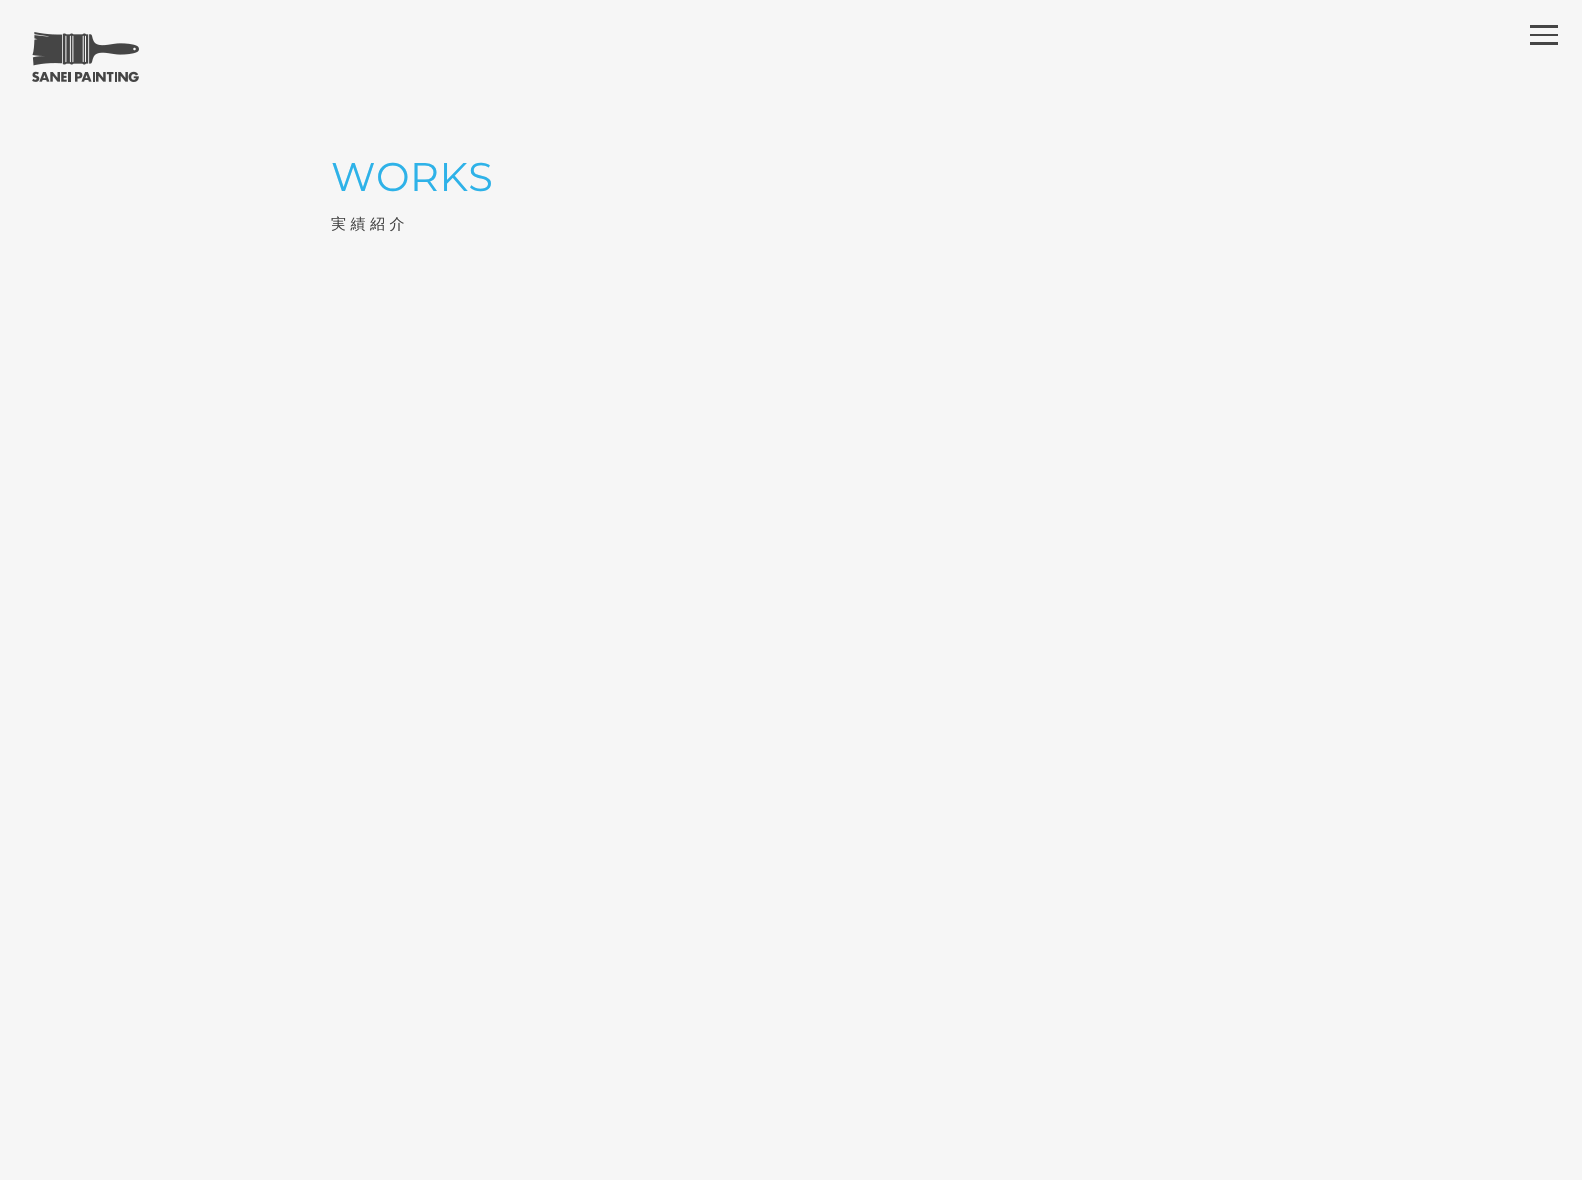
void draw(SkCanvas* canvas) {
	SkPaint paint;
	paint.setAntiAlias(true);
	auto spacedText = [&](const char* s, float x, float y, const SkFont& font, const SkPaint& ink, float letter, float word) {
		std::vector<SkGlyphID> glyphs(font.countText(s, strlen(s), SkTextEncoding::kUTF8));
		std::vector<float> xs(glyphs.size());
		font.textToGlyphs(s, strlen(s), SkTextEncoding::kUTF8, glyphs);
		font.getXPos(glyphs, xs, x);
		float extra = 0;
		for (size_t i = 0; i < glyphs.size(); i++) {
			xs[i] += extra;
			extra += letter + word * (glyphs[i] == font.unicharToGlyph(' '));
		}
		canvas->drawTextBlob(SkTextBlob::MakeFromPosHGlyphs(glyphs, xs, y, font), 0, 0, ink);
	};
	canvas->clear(0xfff6f6f6);
	paint.setColor(0xff454545);
	canvas->drawRect(SkRect::MakeXYWH(1530, 25, 28, 3), paint);
	canvas->drawRect(SkRect::MakeXYWH(1530, 34, 28, 2), paint);
	canvas->drawRect(SkRect::MakeXYWH(1530, 42, 28, 3), paint);
	canvas->drawImageRect(SkImages::DeferredFromEncodedData(SkData::MakeFromFileName("img1.png")), SkRect::MakeXYWH(32, 32, 107, 50), SkSamplingOptions());
	SkFont f1(fontMgr->matchFamilyStyle("Montserrat", SkFontStyle::Normal()), 40);
	f1.setSubpixel(true);
	paint.setColor(0xff2eb2e8);
	spacedText("WORKS", 331, 191, f1, paint, 0.5, 0);
	SkFont f2(fontMgr->matchFamilyStyle("WenQuanYi Zen Hei", SkFontStyle(500, SkFontStyle::kNormal_Width, SkFontStyle::kUpright_Slant)), 15);
	f2.setSubpixel(true);
	paint.setColor(0xff454545);
	spacedText("実績紹介", 331, 229, f2, paint, 4.5, 0);
}
